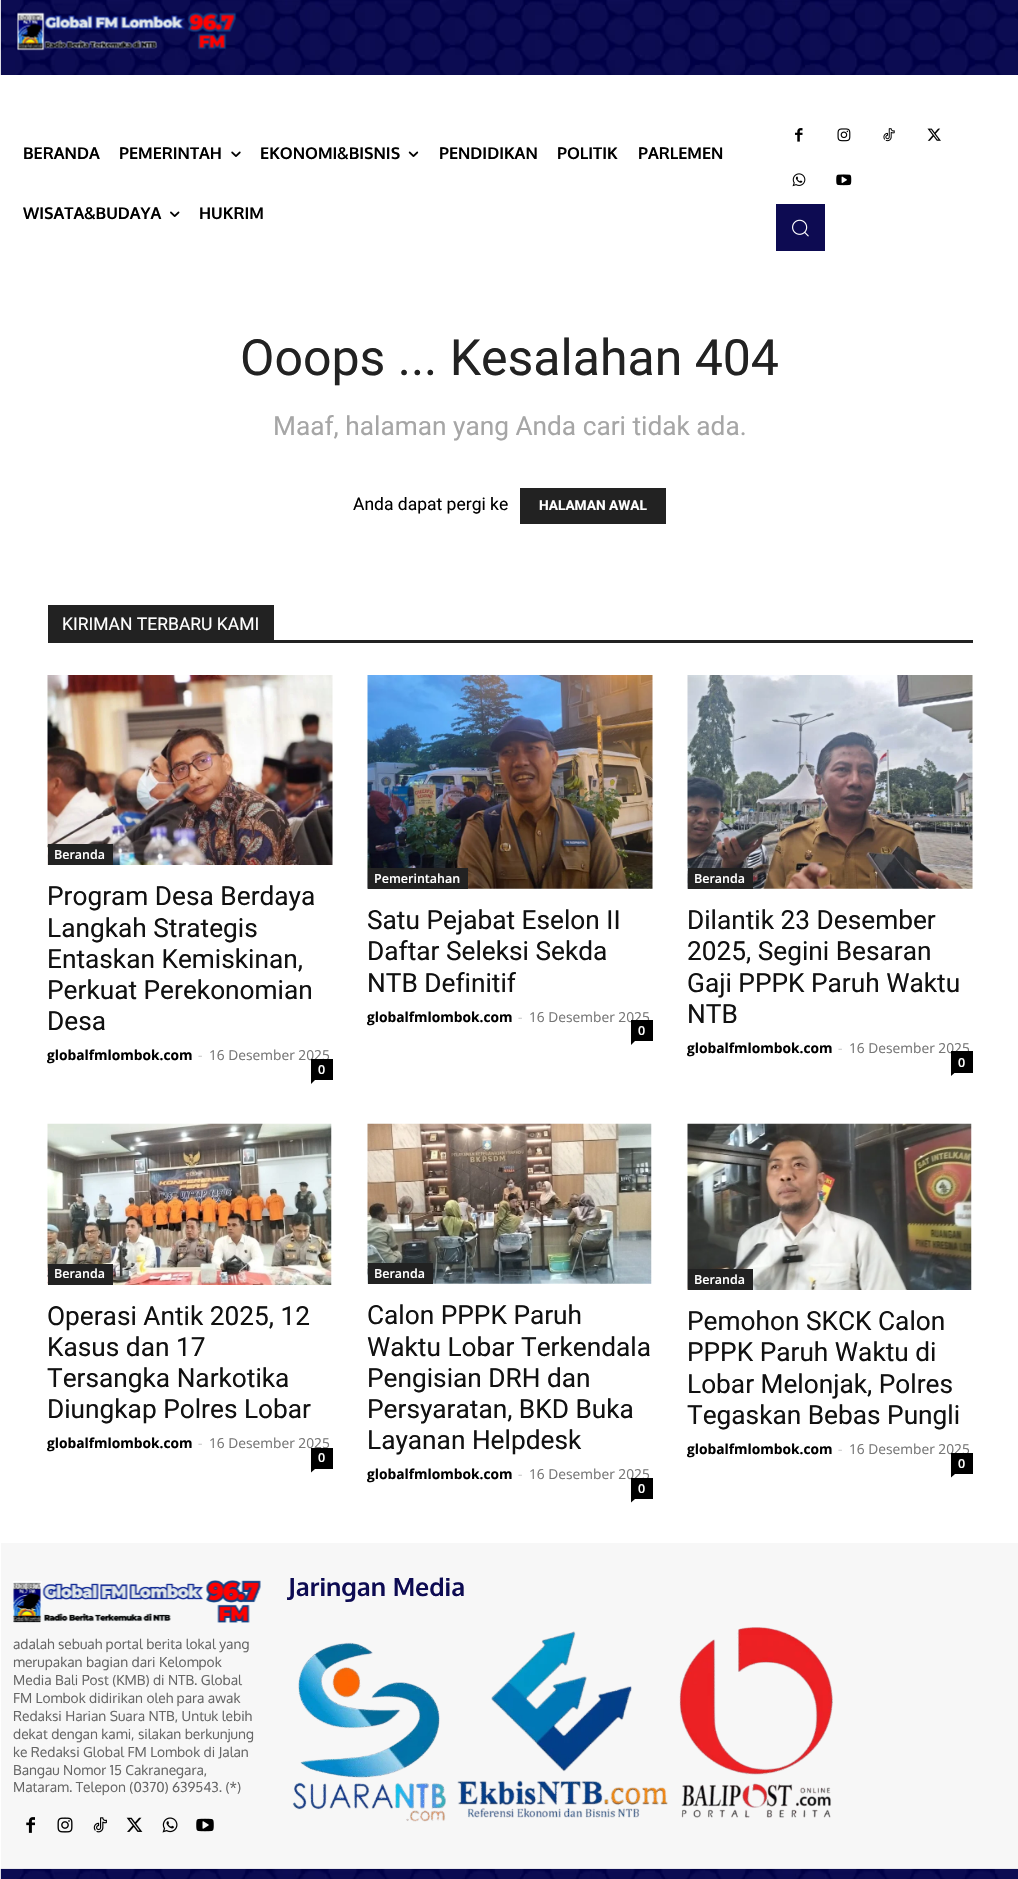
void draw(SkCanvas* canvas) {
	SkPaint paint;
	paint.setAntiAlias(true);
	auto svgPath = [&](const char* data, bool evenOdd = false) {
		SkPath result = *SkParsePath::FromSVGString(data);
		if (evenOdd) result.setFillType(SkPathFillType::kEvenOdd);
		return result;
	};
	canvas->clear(0xffffffff);
	canvas->drawImageRect(SkImages::DeferredFromEncodedData(SkData::MakeFromFileName("img1.png")), SkRect::MakeXYWH(0, 0, 1018, 75), SkSamplingOptions());
	canvas->drawImageRect(SkImages::DeferredFromEncodedData(SkData::MakeFromFileName("img2.png")), SkRect::MakeXYWH(17, 12, 220, 39), SkSamplingOptions());
	SkFont f1(fontMgr->matchFamilyStyle("Oxygen", SkFontStyle::Bold()), 16.25);
	f1.setSubpixel(true);
	paint.setColor(0xff000000);
	canvas->drawString("BERANDA", 23, 159, f1, paint);
	canvas->drawString("PEMERINTAH", 119, 159, f1, paint);
	canvas->drawImageRect(SkImages::DeferredFromEncodedData(SkData::MakeFromFileName("img3.png")), SkRect::MakeXYWH(231, 151, 10, 6), SkSamplingOptions());
	canvas->drawString("EKONOMI&BISNIS", 260, 159, f1, paint);
	canvas->drawImageRect(SkImages::DeferredFromEncodedData(SkData::MakeFromFileName("img4.png")), SkRect::MakeXYWH(408, 151, 11, 6), SkSamplingOptions());
	canvas->drawString("PENDIDIKAN", 439, 159, f1, paint);
	canvas->drawString("POLITIK", 557, 159, f1, paint);
	canvas->drawString("PARLEMEN", 638, 159, f1, paint);
	canvas->drawString("WISATA&BUDAYA", 23, 219, f1, paint);
	canvas->drawImageRect(SkImages::DeferredFromEncodedData(SkData::MakeFromFileName("img5.png")), SkRect::MakeXYWH(170, 211, 10, 6), SkSamplingOptions());
	canvas->drawString("HUKRIM", 199, 219, f1, paint);
	canvas->drawImageRect(SkImages::DeferredFromEncodedData(SkData::MakeFromFileName("img6.png")), SkRect::MakeXYWH(795, 128, 8, 14), SkSamplingOptions());
	canvas->drawImageRect(SkImages::DeferredFromEncodedData(SkData::MakeFromFileName("img7.png")), SkRect::MakeXYWH(837, 128, 14, 14), SkSamplingOptions());
	canvas->drawImageRect(SkImages::DeferredFromEncodedData(SkData::MakeFromFileName("img8.png")), SkRect::MakeXYWH(883, 128, 12, 14), SkSamplingOptions());
	canvas->drawImageRect(SkImages::DeferredFromEncodedData(SkData::MakeFromFileName("img9.png")), SkRect::MakeXYWH(927, 128, 14, 13), SkSamplingOptions());
	canvas->drawImageRect(SkImages::DeferredFromEncodedData(SkData::MakeFromFileName("img10.png")), SkRect::MakeXYWH(792, 173, 14, 14), SkSamplingOptions());
	canvas->drawImageRect(SkImages::DeferredFromEncodedData(SkData::MakeFromFileName("img11.png")), SkRect::MakeXYWH(836, 174, 16, 12), SkSamplingOptions());
	paint.setColor(0xff0d0b52);
	canvas->drawRect(SkRect::MakeXYWH(776, 204, 49, 47), paint);
	canvas->drawImageRect(SkImages::DeferredFromEncodedData(SkData::MakeFromFileName("img12.png")), SkRect::MakeXYWH(792, 219, 17, 18), SkSamplingOptions());
	SkFont f2(fontMgr->matchFamilyStyle("Roboto", SkFontStyle::Normal()), 50);
	f2.setSubpixel(true);
	paint.setColor(0xff222222);
	canvas->drawString("Ooops ... Kesalahan 404", 240, 375, f2, paint);
	SkFont f3(fontMgr->matchFamilyStyle("Roboto", SkFontStyle::Normal()), 26.25);
	f3.setSubpixel(true);
	paint.setColor(0xffa6a6a6);
	canvas->drawString("Maaf, halaman yang Anda cari tidak ada.", 273, 435, f3, paint);
	SkFont f4(fontMgr->matchFamilyStyle("Roboto", SkFontStyle::Normal()), 17.5);
	f4.setSubpixel(true);
	paint.setColor(0xff000000);
	canvas->drawString("Anda dapat pergi ke", 353, 510, f4, paint);
	paint.setColor(0xff222222);
	canvas->drawRect(SkRect::MakeXYWH(520, 488, 146, 36), paint);
	SkFont f5(fontMgr->matchFamilyStyle("Roboto", SkFontStyle::Bold()), 13.75);
	f5.setSubpixel(true);
	paint.setColor(0xffffffff);
	canvas->drawString("HALAMAN AWAL", 539, 510, f5, paint);
	paint.setColor(0xff222222);
	canvas->drawRect(SkRect::MakeXYWH(48, 640, 925, 3), paint);
	canvas->drawRect(SkRect::MakeXYWH(48, 605, 226, 35), paint);
	paint.setColor(0xffffffff);
	canvas->drawString("KIRIMAN TERBARU KAMI", 62, 630, f4, paint);
	canvas->drawImageRect(SkImages::DeferredFromEncodedData(SkData::MakeFromFileName("img13.png")), SkRect::MakeXYWH(47, 675, 286, 190), SkSamplingOptions());
	paint.setColor(0xff222222);
	canvas->drawRect(SkRect::MakeXYWH(48, 844, 65, 21), paint);
	SkFont f6(fontMgr->matchFamilyStyle("Open Sans", SkFontStyle(600, SkFontStyle::kNormal_Width, SkFontStyle::kUpright_Slant)), 12.5);
	f6.setSubpixel(true);
	paint.setColor(0xffffffff);
	canvas->drawString("Beranda", 54, 859, f6, paint);
	paint.setColor(0xff111111);
	canvas->drawString("Program Desa Berdaya", 47, 905, f3, paint);
	canvas->drawString("Langkah Strategis", 47, 937, f3, paint);
	canvas->drawString("Entaskan Kemiskinan,", 47, 968, f3, paint);
	canvas->drawString("Perkuat Perekonomian", 47, 999, f3, paint);
	canvas->drawString("Desa", 47, 1030, f3, paint);
	SkFont f7(fontMgr->matchFamilyStyle("Open Sans", SkFontStyle::Bold()), 13.75);
	f7.setSubpixel(true);
	paint.setColor(0xff000000);
	canvas->drawString("globalfmlombok.com", 47, 1060, f7, paint);
	SkFont f8(fontMgr->matchFamilyStyle("Open Sans", SkFontStyle::Normal()), 13.75);
	f8.setSubpixel(true);
	paint.setColor(0xffcccccc);
	canvas->drawString("-", 198, 1060, f8, paint);
	paint.setColor(0xff767676);
	canvas->drawString("16 Desember 2025", 209, 1060, f8, paint);
	paint.setColor(0xff000000);
	canvas->drawRect(SkRect::MakeXYWH(311, 1059, 22, 21), paint);
	paint.setColor(0xffffffff);
	canvas->drawString("0", 318, 1074, f6, paint);
	paint.setColor(0xff000000);
	canvas->drawPath(svgPath("M311 1080H315L311 1084Z"), paint);
	canvas->drawImageRect(SkImages::DeferredFromEncodedData(SkData::MakeFromFileName("img14.png")), SkRect::MakeXYWH(367, 675, 286, 214), SkSamplingOptions());
	paint.setColor(0xff222222);
	canvas->drawRect(SkRect::MakeXYWH(368, 868, 100, 21), paint);
	paint.setColor(0xffffffff);
	canvas->drawString("Pemerintahan", 374, 883, f6, paint);
	paint.setColor(0xff111111);
	canvas->drawString("Satu Pejabat Eselon II", 367, 929, f3, paint);
	canvas->drawString("Daftar Seleksi Sekda", 367, 960, f3, paint);
	canvas->drawString("NTB Definitif", 367, 992, f3, paint);
	paint.setColor(0xff000000);
	canvas->drawString("globalfmlombok.com", 367, 1022, f7, paint);
	paint.setColor(0xffcccccc);
	canvas->drawString("-", 518, 1022, f8, paint);
	paint.setColor(0xff767676);
	canvas->drawString("16 Desember 2025", 529, 1022, f8, paint);
	paint.setColor(0xff000000);
	canvas->drawRect(SkRect::MakeXYWH(631, 1020, 22, 21), paint);
	paint.setColor(0xffffffff);
	canvas->drawString("0", 638, 1035, f6, paint);
	paint.setColor(0xff000000);
	canvas->drawPath(svgPath("M631 1041H635L631 1045Z"), paint);
	canvas->drawImageRect(SkImages::DeferredFromEncodedData(SkData::MakeFromFileName("img15.png")), SkRect::MakeXYWH(687, 675, 286, 214), SkSamplingOptions());
	paint.setColor(0xff222222);
	canvas->drawRect(SkRect::MakeXYWH(688, 868, 65, 21), paint);
	paint.setColor(0xffffffff);
	canvas->drawString("Beranda", 694, 883, f6, paint);
	paint.setColor(0xff111111);
	canvas->drawString("Dilantik 23 Desember", 687, 929, f3, paint);
	canvas->drawString("2025, Segini Besaran", 687, 960, f3, paint);
	canvas->drawString("Gaji PPPK Paruh Waktu", 687, 992, f3, paint);
	canvas->drawString("NTB", 687, 1023, f3, paint);
	paint.setColor(0xff000000);
	canvas->drawString("globalfmlombok.com", 687, 1053, f7, paint);
	paint.setColor(0xffcccccc);
	canvas->drawString("-", 838, 1053, f8, paint);
	paint.setColor(0xff767676);
	canvas->drawString("16 Desember 2025", 849, 1053, f8, paint);
	paint.setColor(0xff000000);
	canvas->drawRect(SkRect::MakeXYWH(951, 1051, 22, 22), paint);
	paint.setColor(0xffffffff);
	canvas->drawString("0", 958, 1067, f6, paint);
	paint.setColor(0xff000000);
	canvas->drawPath(svgPath("M951 1072.5H955L951 1076Z"), paint);
	canvas->drawImageRect(SkImages::DeferredFromEncodedData(SkData::MakeFromFileName("img16.png")), SkRect::MakeXYWH(47, 1123, 285, 162), SkSamplingOptions());
	paint.setColor(0xff222222);
	canvas->drawRect(SkRect::MakeXYWH(48, 1264, 65, 21), paint);
	paint.setColor(0xffffffff);
	canvas->drawString("Beranda", 54, 1278, f6, paint);
	paint.setColor(0xff111111);
	canvas->drawString("Operasi Antik 2025, 12", 47, 1325, f3, paint);
	canvas->drawString("Kasus dan 17", 47, 1356, f3, paint);
	canvas->drawString("Tersangka Narkotika", 47, 1387, f3, paint);
	canvas->drawString("Diungkap Polres Lobar", 47, 1418, f3, paint);
	paint.setColor(0xff000000);
	canvas->drawString("globalfmlombok.com", 47, 1448, f7, paint);
	paint.setColor(0xffcccccc);
	canvas->drawString("-", 198, 1448, f8, paint);
	paint.setColor(0xff767676);
	canvas->drawString("16 Desember 2025", 209, 1448, f8, paint);
	paint.setColor(0xff000000);
	canvas->drawRect(SkRect::MakeXYWH(311, 1448, 22, 21), paint);
	paint.setColor(0xffffffff);
	canvas->drawString("0", 318, 1462, f6, paint);
	paint.setColor(0xff000000);
	canvas->drawPath(svgPath("M311 1469H315L311 1472.5Z"), paint);
	canvas->drawImageRect(SkImages::DeferredFromEncodedData(SkData::MakeFromFileName("img17.png")), SkRect::MakeXYWH(367, 1123, 285, 161), SkSamplingOptions());
	paint.setColor(0xff222222);
	canvas->drawRect(SkRect::MakeXYWH(368, 1263, 65, 21), paint);
	paint.setColor(0xffffffff);
	canvas->drawString("Beranda", 374, 1278, f6, paint);
	paint.setColor(0xff111111);
	canvas->drawString("Calon PPPK Paruh", 367, 1324, f3, paint);
	canvas->drawString("Waktu Lobar Terkendala", 367, 1356, f3, paint);
	canvas->drawString("Pengisian DRH dan", 367, 1387, f3, paint);
	canvas->drawString("Persyaratan, BKD Buka", 367, 1418, f3, paint);
	canvas->drawString("Layanan Helpdesk", 367, 1449, f3, paint);
	paint.setColor(0xff000000);
	canvas->drawString("globalfmlombok.com", 367, 1479, f7, paint);
	paint.setColor(0xffcccccc);
	canvas->drawString("-", 518, 1479, f8, paint);
	paint.setColor(0xff767676);
	canvas->drawString("16 Desember 2025", 529, 1479, f8, paint);
	paint.setColor(0xff000000);
	canvas->drawRect(SkRect::MakeXYWH(631, 1478, 22, 21), paint);
	paint.setColor(0xffffffff);
	canvas->drawString("0", 638, 1493, f6, paint);
	paint.setColor(0xff000000);
	canvas->drawPath(svgPath("M631 1499H635L631 1502.5Z"), paint);
	canvas->drawImageRect(SkImages::DeferredFromEncodedData(SkData::MakeFromFileName("img18.png")), SkRect::MakeXYWH(687, 1123, 285, 167), SkSamplingOptions());
	paint.setColor(0xff222222);
	canvas->drawRect(SkRect::MakeXYWH(688, 1269, 65, 21), paint);
	paint.setColor(0xffffffff);
	canvas->drawString("Beranda", 694, 1284, f6, paint);
	paint.setColor(0xff111111);
	canvas->drawString("Pemohon SKCK Calon", 687, 1330, f3, paint);
	canvas->drawString("PPPK Paruh Waktu di", 687, 1361, f3, paint);
	canvas->drawString("Lobar Melonjak, Polres", 687, 1393, f3, paint);
	canvas->drawString("Tegaskan Bebas Pungli", 687, 1424, f3, paint);
	paint.setColor(0xff000000);
	canvas->drawString("globalfmlombok.com", 687, 1454, f7, paint);
	paint.setColor(0xffcccccc);
	canvas->drawString("-", 838, 1454, f8, paint);
	paint.setColor(0xff767676);
	canvas->drawString("16 Desember 2025", 849, 1454, f8, paint);
	paint.setColor(0xff000000);
	canvas->drawRect(SkRect::MakeXYWH(951, 1453, 22, 21), paint);
	paint.setColor(0xffffffff);
	canvas->drawString("0", 958, 1468, f6, paint);
	paint.setColor(0xff000000);
	canvas->drawPath(svgPath("M951 1474H955L951 1477.5Z"), paint);
	paint.setColor(0xfff7f7f7);
	canvas->drawRect(SkRect::MakeXYWH(1, 1543, 1017, 326), paint);
	SkFont f9(fontMgr->matchFamilyStyle("Oxygen", SkFontStyle::Bold()), 25);
	f9.setSubpixel(true);
	paint.setColor(0xff0d0b52);
	canvas->drawString("Jaringan Media", 288, 1596, f9, paint);
	canvas->drawImageRect(SkImages::DeferredFromEncodedData(SkData::MakeFromFileName("img19.png")), SkRect::MakeXYWH(292, 1642, 154, 180), SkSamplingOptions());
	canvas->drawImageRect(SkImages::DeferredFromEncodedData(SkData::MakeFromFileName("img20.png")), SkRect::MakeXYWH(457, 1631, 211, 187), SkSamplingOptions());
	canvas->drawImageRect(SkImages::DeferredFromEncodedData(SkData::MakeFromFileName("img21.png")), SkRect::MakeXYWH(679, 1627, 154, 191), SkSamplingOptions());
	canvas->drawImageRect(SkImages::DeferredFromEncodedData(SkData::MakeFromFileName("img22.png")), SkRect::MakeXYWH(13, 1580, 248, 43), SkSamplingOptions());
	SkFont f10(fontMgr->matchFamilyStyle("Oxygen", SkFontStyle::Normal()), 13.75);
	f10.setSubpixel(true);
	paint.setColor(0xff666666);
	canvas->drawString("adalah sebuah portal berita lokal yang", 13, 1649, f10, paint);
	canvas->drawString("merupakan bagian dari Kelompok", 13, 1667, f10, paint);
	canvas->drawString("Media Bali Post (KMB) di NTB. Global", 13, 1685, f10, paint);
	canvas->drawString("FM Lombok didirikan oleh para awak", 13, 1703, f10, paint);
	canvas->drawString("Redaksi Harian Suara NTB, Untuk lebih", 13, 1721, f10, paint);
	canvas->drawString("dekat dengan kami, silakan berkunjung", 13, 1739, f10, paint);
	canvas->drawString("ke Redaksi Global FM Lombok di Jalan", 13, 1757, f10, paint);
	canvas->drawString("Bangau Nomor 15 Cakranegara,", 13, 1775, f10, paint);
	canvas->drawString("Mataram. Telepon (0370) 639543. (*)", 13, 1792, f10, paint);
	canvas->drawImageRect(SkImages::DeferredFromEncodedData(SkData::MakeFromFileName("img23.png")), SkRect::MakeXYWH(26, 1817, 9, 16), SkSamplingOptions());
	canvas->drawImageRect(SkImages::DeferredFromEncodedData(SkData::MakeFromFileName("img24.png")), SkRect::MakeXYWH(57, 1817, 16, 16), SkSamplingOptions());
	canvas->drawImageRect(SkImages::DeferredFromEncodedData(SkData::MakeFromFileName("img25.png")), SkRect::MakeXYWH(93, 1817, 14, 16), SkSamplingOptions());
	canvas->drawImageRect(SkImages::DeferredFromEncodedData(SkData::MakeFromFileName("img26.png")), SkRect::MakeXYWH(126, 1817, 17, 15), SkSamplingOptions());
	canvas->drawImageRect(SkImages::DeferredFromEncodedData(SkData::MakeFromFileName("img27.png")), SkRect::MakeXYWH(162, 1817, 16, 16), SkSamplingOptions());
	canvas->drawImageRect(SkImages::DeferredFromEncodedData(SkData::MakeFromFileName("img28.png")), SkRect::MakeXYWH(196, 1818, 18, 14), SkSamplingOptions());
	canvas->drawImageRect(SkImages::DeferredFromEncodedData(SkData::MakeFromFileName("img29.png")), SkRect::MakeXYWH(0, 1868, 1018, 11), SkSamplingOptions());
}
